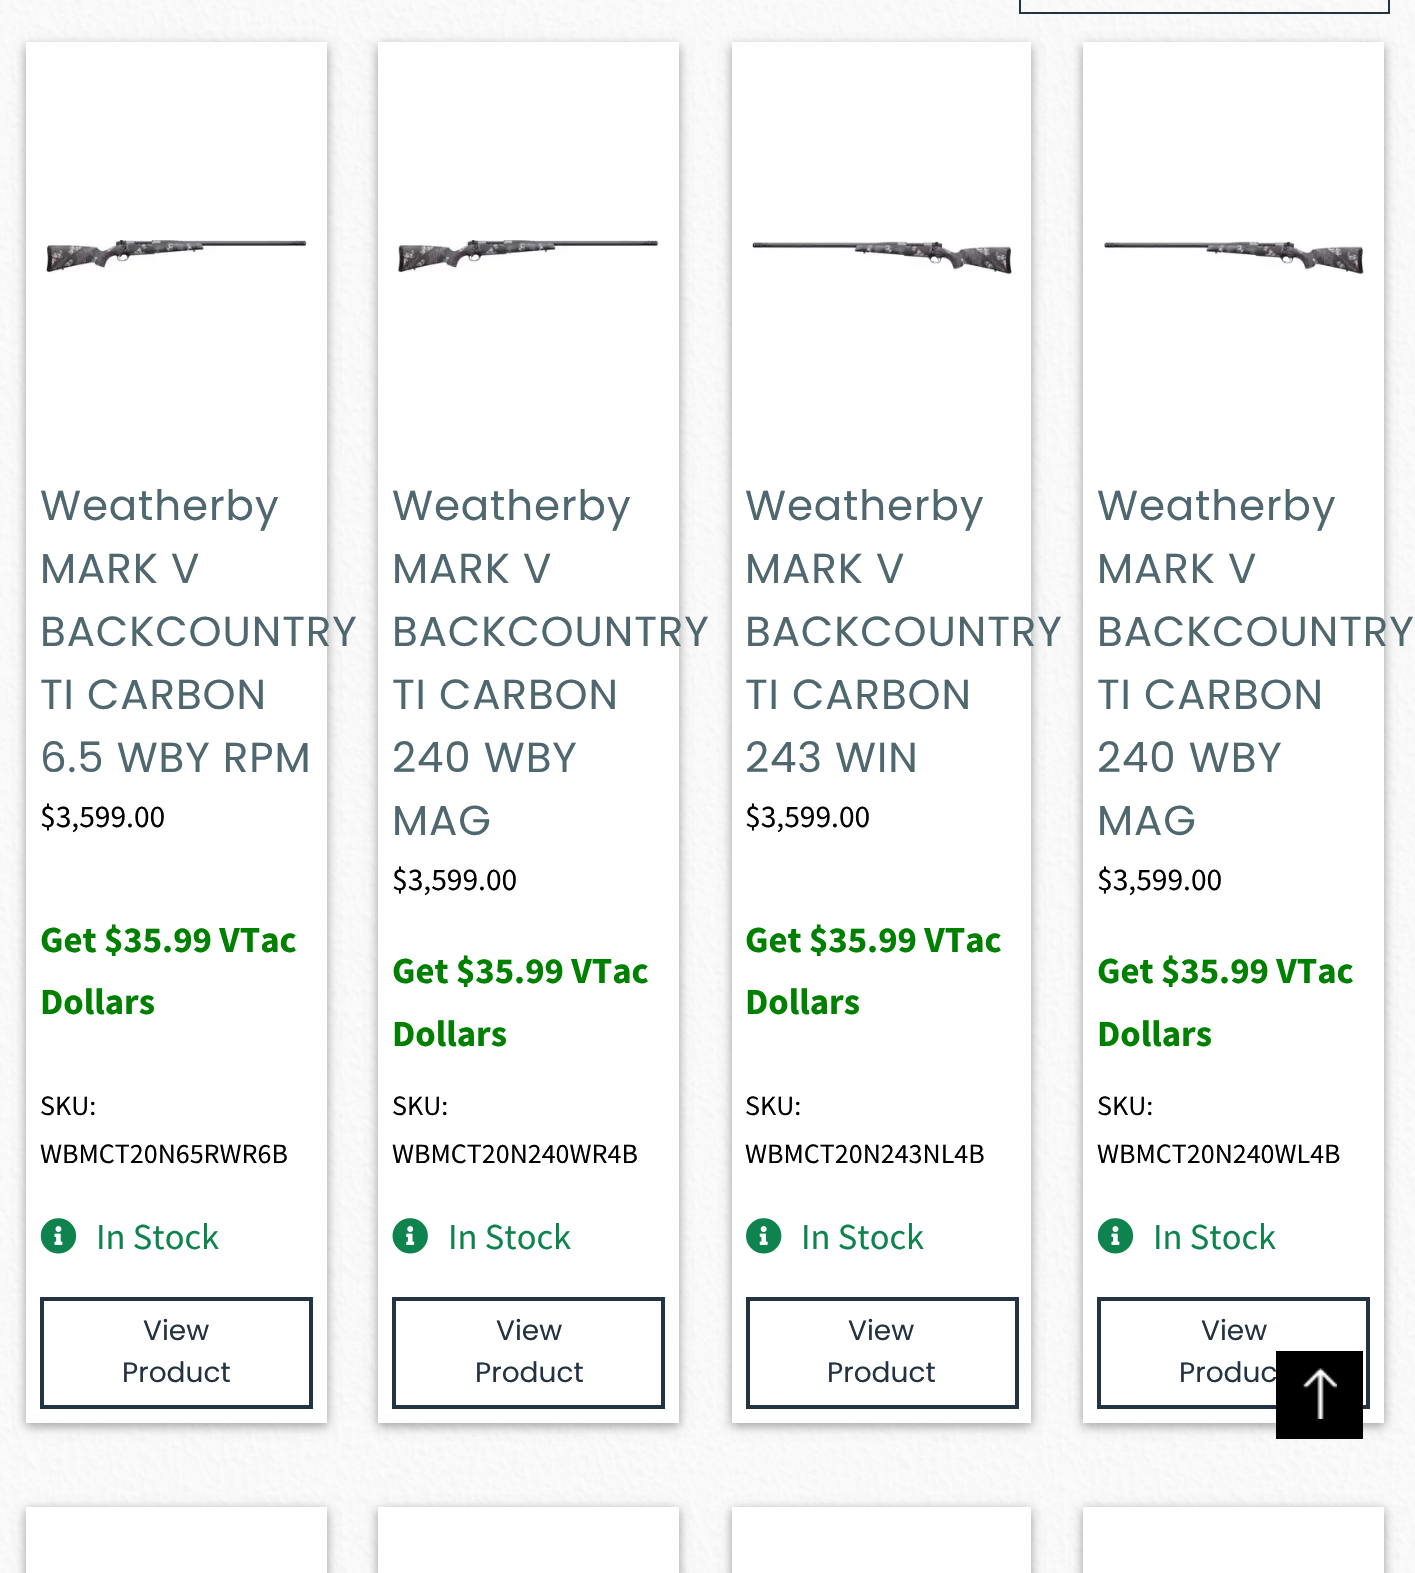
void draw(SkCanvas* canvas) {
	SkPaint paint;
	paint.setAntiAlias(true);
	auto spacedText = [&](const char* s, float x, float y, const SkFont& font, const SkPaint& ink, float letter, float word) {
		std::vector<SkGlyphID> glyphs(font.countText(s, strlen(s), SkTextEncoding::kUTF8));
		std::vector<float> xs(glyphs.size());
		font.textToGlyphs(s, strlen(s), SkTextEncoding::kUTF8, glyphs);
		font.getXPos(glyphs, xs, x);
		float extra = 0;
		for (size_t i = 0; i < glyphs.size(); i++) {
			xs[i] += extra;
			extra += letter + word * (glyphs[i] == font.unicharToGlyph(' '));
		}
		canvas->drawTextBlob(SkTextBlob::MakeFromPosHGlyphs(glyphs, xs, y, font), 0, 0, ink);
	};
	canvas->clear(0xffffffff);
	canvas->drawImageRect(SkImages::DeferredFromEncodedData(SkData::MakeFromFileName("img1.png")), SkRect::MakeXYWH(0, 0, 1415, 1573), SkSamplingOptions());
	paint.setStroke(true);
	paint.setStrokeWidth(2);
	paint.setColor(0xff233342);
	canvas->drawRect(SkRect::MakeXYWH(1020, -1, 369, 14), paint);
	paint.setStroke(false);
	paint.setColor(0x3b000000);
	paint.setMaskFilter(SkMaskFilter::MakeBlur(kNormal_SkBlurStyle, 5));
	canvas->drawRect(SkRect::MakeXYWH(26, 46, 301, 1380), paint);
	paint.setMaskFilter(nullptr);
	paint.setColor(0x29000000);
	paint.setMaskFilter(SkMaskFilter::MakeBlur(kNormal_SkBlurStyle, 5));
	canvas->drawRect(SkRect::MakeXYWH(26, 46, 301, 1380), paint);
	paint.setMaskFilter(nullptr);
	paint.setColor(0xffffffff);
	canvas->drawRect(SkRect::MakeXYWH(26, 42, 301, 1381), paint);
	canvas->drawImageRect(SkImages::DeferredFromEncodedData(SkData::MakeFromFileName("img2.png")), SkRect::MakeXYWH(46, 240, 261, 34), SkSamplingOptions());
	SkFont f1(fontMgr->matchFamilyStyle("Poppins", SkFontStyle::Normal()), 42);
	f1.setSubpixel(true);
	paint.setColor(0xff4f686f);
	spacedText("Weatherby", 40, 520, f1, paint, 0.9, 0);
	spacedText("MARK V", 40, 583, f1, paint, 0.9, 0);
	spacedText("BACKCOUNTRY", 40, 646, f1, paint, 0.9, 0);
	spacedText("TI CARBON", 40, 709, f1, paint, 0.9, 0);
	spacedText("6.5 WBY RPM", 40, 772, f1, paint, 0.9, 0);
	SkFont f2(fontMgr->matchFamilyStyle("Source Sans Pro", SkFontStyle::Normal()), 31.5);
	f2.setSubpixel(true);
	paint.setColor(0xff000000);
	canvas->drawString("$3,599.00", 40, 827, f2, paint);
	SkFont f3(fontMgr->matchFamilyStyle("Source Sans Pro", SkFontStyle::Bold()), 36.75);
	f3.setSubpixel(true);
	paint.setColor(0xff008000);
	canvas->drawString("Get $35.99 VTac", 40, 952, f3, paint);
	canvas->drawString("Dollars", 40, 1014, f3, paint);
	SkFont f4(fontMgr->matchFamilyStyle("Source Sans Pro", SkFontStyle::Normal()), 28);
	f4.setSubpixel(true);
	paint.setColor(0xff000000);
	canvas->drawString("SKU:", 40, 1115, f4, paint);
	canvas->drawString("WBMCT20N65RWR6B", 40, 1163, f4, paint);
	canvas->drawImageRect(SkImages::DeferredFromEncodedData(SkData::MakeFromFileName("img3.png")), SkRect::MakeXYWH(40, 1218, 37, 36), SkSamplingOptions());
	SkFont f5(fontMgr->matchFamilyStyle("Source Sans Pro", SkFontStyle::Normal()), 36.5);
	f5.setSubpixel(true);
	paint.setColor(0xff0f834d);
	canvas->drawString("In Stock", 96, 1249, f5, paint);
	paint.setStroke(true);
	paint.setStrokeWidth(4);
	paint.setColor(0xff233342);
	canvas->drawRect(SkRect::MakeXYWH(42, 1299, 269, 108), paint);
	SkFont f6(fontMgr->matchFamilyStyle("Poppins", SkFontStyle::Normal()), 28);
	f6.setSubpixel(true);
	paint.setStroke(false);
	canvas->drawString("View", 143, 1340, f6, paint);
	canvas->drawString("Product", 122, 1382, f6, paint);
	paint.setColor(0x3b000000);
	paint.setMaskFilter(SkMaskFilter::MakeBlur(kNormal_SkBlurStyle, 5));
	canvas->drawRect(SkRect::MakeXYWH(378, 46, 301, 1380), paint);
	paint.setMaskFilter(nullptr);
	paint.setColor(0x29000000);
	paint.setMaskFilter(SkMaskFilter::MakeBlur(kNormal_SkBlurStyle, 5));
	canvas->drawRect(SkRect::MakeXYWH(378, 46, 301, 1380), paint);
	paint.setMaskFilter(nullptr);
	paint.setColor(0xffffffff);
	canvas->drawRect(SkRect::MakeXYWH(378, 42, 301, 1381), paint);
	canvas->drawImageRect(SkImages::DeferredFromEncodedData(SkData::MakeFromFileName("img4.png")), SkRect::MakeXYWH(398, 240, 261, 34), SkSamplingOptions());
	paint.setColor(0xff4f686f);
	spacedText("Weatherby", 392, 520, f1, paint, 0.9, 0);
	spacedText("MARK V", 392, 583, f1, paint, 0.9, 0);
	spacedText("BACKCOUNTRY", 392, 646, f1, paint, 0.9, 0);
	spacedText("TI CARBON", 392, 709, f1, paint, 0.9, 0);
	spacedText("240 WBY", 392, 772, f1, paint, 0.9, 0);
	spacedText("MAG", 392, 835, f1, paint, 0.9, 0);
	paint.setColor(0xff000000);
	canvas->drawString("$3,599.00", 392, 890, f2, paint);
	paint.setColor(0xff008000);
	canvas->drawString("Get $35.99 VTac", 392, 983, f3, paint);
	canvas->drawString("Dollars", 392, 1046, f3, paint);
	paint.setColor(0xff000000);
	canvas->drawString("SKU:", 392, 1115, f4, paint);
	canvas->drawString("WBMCT20N240WR4B", 392, 1163, f4, paint);
	canvas->drawImageRect(SkImages::DeferredFromEncodedData(SkData::MakeFromFileName("img5.png")), SkRect::MakeXYWH(392, 1218, 36, 36), SkSamplingOptions());
	paint.setColor(0xff0f834d);
	canvas->drawString("In Stock", 448, 1249, f5, paint);
	paint.setStroke(true);
	paint.setColor(0xff233342);
	canvas->drawRect(SkRect::MakeXYWH(394, 1299, 269, 108), paint);
	paint.setStroke(false);
	canvas->drawString("View", 496, 1340, f6, paint);
	canvas->drawString("Product", 475, 1382, f6, paint);
	paint.setColor(0x3b000000);
	paint.setMaskFilter(SkMaskFilter::MakeBlur(kNormal_SkBlurStyle, 5));
	canvas->drawRect(SkRect::MakeXYWH(732, 46, 299, 1380), paint);
	paint.setMaskFilter(nullptr);
	paint.setColor(0x29000000);
	paint.setMaskFilter(SkMaskFilter::MakeBlur(kNormal_SkBlurStyle, 5));
	canvas->drawRect(SkRect::MakeXYWH(732, 46, 299, 1380), paint);
	paint.setMaskFilter(nullptr);
	paint.setColor(0xffffffff);
	canvas->drawRect(SkRect::MakeXYWH(732, 42, 299, 1381), paint);
	canvas->drawImageRect(SkImages::DeferredFromEncodedData(SkData::MakeFromFileName("img6.png")), SkRect::MakeXYWH(752, 241, 260, 34), SkSamplingOptions());
	paint.setColor(0xff4f686f);
	spacedText("Weatherby", 745, 520, f1, paint, 0.9, 0);
	spacedText("MARK V", 745, 583, f1, paint, 0.9, 0);
	spacedText("BACKCOUNTRY", 745, 646, f1, paint, 0.9, 0);
	spacedText("TI CARBON", 745, 709, f1, paint, 0.9, 0);
	spacedText("243 WIN", 745, 772, f1, paint, 0.9, 0);
	paint.setColor(0xff000000);
	canvas->drawString("$3,599.00", 745, 827, f2, paint);
	paint.setColor(0xff008000);
	canvas->drawString("Get $35.99 VTac", 745, 952, f3, paint);
	canvas->drawString("Dollars", 745, 1014, f3, paint);
	paint.setColor(0xff000000);
	canvas->drawString("SKU:", 745, 1115, f4, paint);
	canvas->drawString("WBMCT20N243NL4B", 745, 1163, f4, paint);
	canvas->drawImageRect(SkImages::DeferredFromEncodedData(SkData::MakeFromFileName("img7.png")), SkRect::MakeXYWH(746, 1218, 36, 36), SkSamplingOptions());
	paint.setColor(0xff0f834d);
	canvas->drawString("In Stock", 801, 1249, f5, paint);
	paint.setStroke(true);
	paint.setColor(0xff233342);
	canvas->drawRect(SkRect::MakeXYWH(748, 1299, 269, 108), paint);
	paint.setStroke(false);
	canvas->drawString("View", 848, 1340, f6, paint);
	canvas->drawString("Product", 827, 1382, f6, paint);
	paint.setColor(0x3b000000);
	paint.setMaskFilter(SkMaskFilter::MakeBlur(kNormal_SkBlurStyle, 5));
	canvas->drawRect(SkRect::MakeXYWH(1083, 46, 301, 1380), paint);
	paint.setMaskFilter(nullptr);
	paint.setColor(0x29000000);
	paint.setMaskFilter(SkMaskFilter::MakeBlur(kNormal_SkBlurStyle, 5));
	canvas->drawRect(SkRect::MakeXYWH(1083, 46, 301, 1380), paint);
	paint.setMaskFilter(nullptr);
	paint.setColor(0xffffffff);
	canvas->drawRect(SkRect::MakeXYWH(1083, 42, 301, 1381), paint);
	canvas->drawImageRect(SkImages::DeferredFromEncodedData(SkData::MakeFromFileName("img8.png")), SkRect::MakeXYWH(1104, 241, 260, 34), SkSamplingOptions());
	paint.setColor(0xff4f686f);
	spacedText("Weatherby", 1097, 520, f1, paint, 0.9, 0);
	spacedText("MARK V", 1097, 583, f1, paint, 0.9, 0);
	spacedText("BACKCOUNTRY", 1097, 646, f1, paint, 0.9, 0);
	spacedText("TI CARBON", 1097, 709, f1, paint, 0.9, 0);
	spacedText("240 WBY", 1097, 772, f1, paint, 0.9, 0);
	spacedText("MAG", 1097, 835, f1, paint, 0.9, 0);
	paint.setColor(0xff000000);
	canvas->drawString("$3,599.00", 1097, 890, f2, paint);
	paint.setColor(0xff008000);
	canvas->drawString("Get $35.99 VTac", 1097, 983, f3, paint);
	canvas->drawString("Dollars", 1097, 1046, f3, paint);
	paint.setColor(0xff000000);
	canvas->drawString("SKU:", 1097, 1115, f4, paint);
	canvas->drawString("WBMCT20N240WL4B", 1097, 1163, f4, paint);
	canvas->drawImageRect(SkImages::DeferredFromEncodedData(SkData::MakeFromFileName("img3.png")), SkRect::MakeXYWH(1097, 1218, 37, 36), SkSamplingOptions());
	paint.setColor(0xff0f834d);
	canvas->drawString("In Stock", 1153, 1249, f5, paint);
	paint.setStroke(true);
	paint.setColor(0xff233342);
	canvas->drawRect(SkRect::MakeXYWH(1099, 1299, 269, 108), paint);
	paint.setStroke(false);
	canvas->drawString("View", 1201, 1340, f6, paint);
	canvas->drawString("Produc", 1179, 1382, f6, paint);
	paint.setColor(0x3b000000);
	paint.setMaskFilter(SkMaskFilter::MakeBlur(kNormal_SkBlurStyle, 5));
	canvas->drawRect(SkRect::MakeXYWH(26, 1510, 301, 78), paint);
	paint.setMaskFilter(nullptr);
	paint.setColor(0x29000000);
	paint.setMaskFilter(SkMaskFilter::MakeBlur(kNormal_SkBlurStyle, 5));
	canvas->drawRect(SkRect::MakeXYWH(26, 1510, 301, 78), paint);
	paint.setMaskFilter(nullptr);
	paint.setColor(0xffffffff);
	canvas->drawRect(SkRect::MakeXYWH(26, 1507, 301, 66), paint);
	paint.setColor(0x3b000000);
	paint.setMaskFilter(SkMaskFilter::MakeBlur(kNormal_SkBlurStyle, 5));
	canvas->drawRect(SkRect::MakeXYWH(378, 1510, 301, 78), paint);
	paint.setMaskFilter(nullptr);
	paint.setColor(0x29000000);
	paint.setMaskFilter(SkMaskFilter::MakeBlur(kNormal_SkBlurStyle, 5));
	canvas->drawRect(SkRect::MakeXYWH(378, 1510, 301, 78), paint);
	paint.setMaskFilter(nullptr);
	paint.setColor(0xffffffff);
	canvas->drawRect(SkRect::MakeXYWH(378, 1507, 301, 66), paint);
	paint.setColor(0x3b000000);
	paint.setMaskFilter(SkMaskFilter::MakeBlur(kNormal_SkBlurStyle, 5));
	canvas->drawRect(SkRect::MakeXYWH(732, 1510, 299, 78), paint);
	paint.setMaskFilter(nullptr);
	paint.setColor(0x29000000);
	paint.setMaskFilter(SkMaskFilter::MakeBlur(kNormal_SkBlurStyle, 5));
	canvas->drawRect(SkRect::MakeXYWH(732, 1510, 299, 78), paint);
	paint.setMaskFilter(nullptr);
	paint.setColor(0xffffffff);
	canvas->drawRect(SkRect::MakeXYWH(732, 1507, 299, 66), paint);
	paint.setColor(0x3b000000);
	paint.setMaskFilter(SkMaskFilter::MakeBlur(kNormal_SkBlurStyle, 5));
	canvas->drawRect(SkRect::MakeXYWH(1083, 1510, 301, 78), paint);
	paint.setMaskFilter(nullptr);
	paint.setColor(0x29000000);
	paint.setMaskFilter(SkMaskFilter::MakeBlur(kNormal_SkBlurStyle, 5));
	canvas->drawRect(SkRect::MakeXYWH(1083, 1510, 301, 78), paint);
	paint.setMaskFilter(nullptr);
	paint.setColor(0xffffffff);
	canvas->drawRect(SkRect::MakeXYWH(1083, 1507, 301, 66), paint);
	paint.setColor(0xff000000);
	canvas->drawRect(SkRect::MakeXYWH(1276, 1351, 87, 88), paint);
	canvas->drawImageRect(SkImages::DeferredFromEncodedData(SkData::MakeFromFileName("img9.png")), SkRect::MakeXYWH(1303, 1368, 34, 51), SkSamplingOptions());
}
